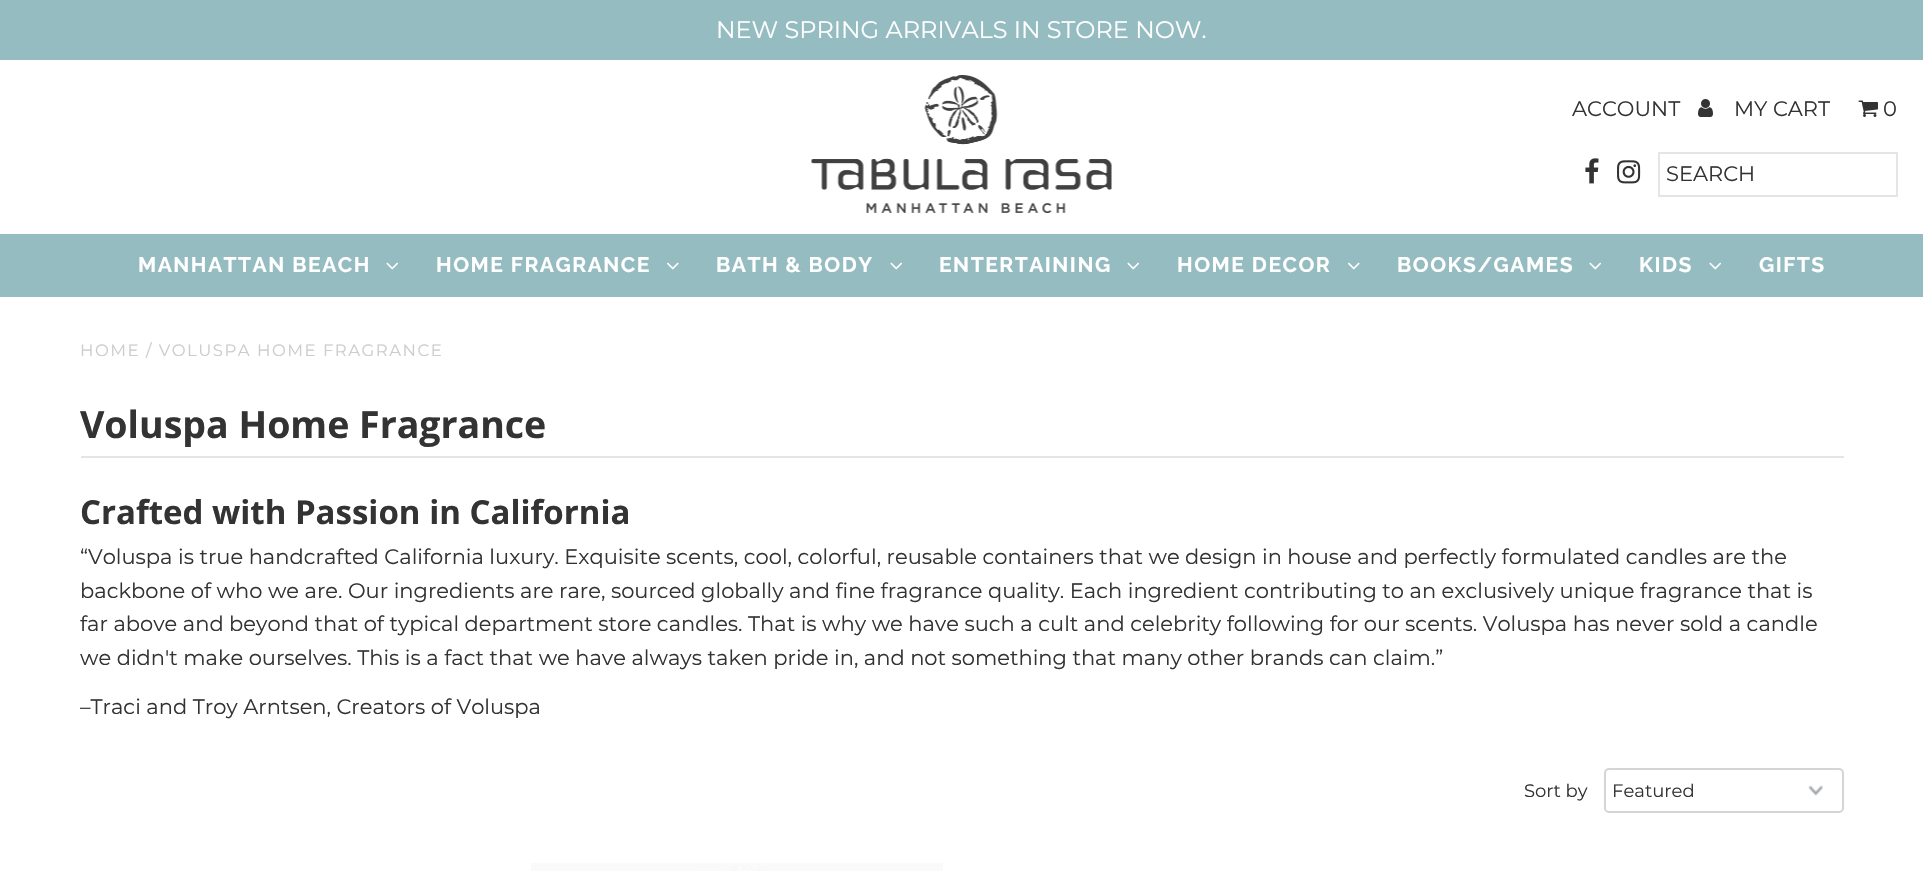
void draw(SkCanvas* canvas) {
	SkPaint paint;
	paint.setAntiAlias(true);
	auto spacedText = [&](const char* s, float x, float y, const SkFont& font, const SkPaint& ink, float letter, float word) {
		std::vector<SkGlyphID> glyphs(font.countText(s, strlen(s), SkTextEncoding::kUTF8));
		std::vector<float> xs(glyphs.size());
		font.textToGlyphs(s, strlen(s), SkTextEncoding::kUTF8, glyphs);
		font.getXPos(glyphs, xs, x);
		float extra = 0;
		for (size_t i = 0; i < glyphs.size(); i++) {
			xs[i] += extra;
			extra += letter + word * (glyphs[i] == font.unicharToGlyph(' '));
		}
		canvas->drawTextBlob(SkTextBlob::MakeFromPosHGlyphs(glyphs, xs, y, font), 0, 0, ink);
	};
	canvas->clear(0xffffffff);
	paint.setColor(0xff95bcc1);
	canvas->drawRect(SkRect::MakeXYWH(0, 0, 1923, 60), paint);
	SkFont f1(fontMgr->matchFamilyStyle("Montserrat", SkFontStyle::Normal()), 24);
	f1.setSubpixel(true);
	paint.setColor(0xffffffff);
	canvas->drawString("NEW SPRING ARRIVALS IN STORE NOW.", 716, 38, f1, paint);
	canvas->drawImageRect(SkImages::DeferredFromEncodedData(SkData::MakeFromFileName("img1.png")), SkRect::MakeXYWH(811, 75, 301, 138), SkSamplingOptions());
	SkFont f2(fontMgr->matchFamilyStyle("Montserrat", SkFontStyle::Normal()), 21);
	f2.setSubpixel(true);
	paint.setColor(0xff333333);
	canvas->drawString("ACCOUNT", 1572, 116, f2, paint);
	canvas->drawImageRect(SkImages::DeferredFromEncodedData(SkData::MakeFromFileName("img2.png")), SkRect::MakeXYWH(1698, 99, 15, 18), SkSamplingOptions());
	canvas->drawString("MY CART", 1734, 116, f2, paint);
	canvas->drawImageRect(SkImages::DeferredFromEncodedData(SkData::MakeFromFileName("img3.png")), SkRect::MakeXYWH(1858, 100, 20, 17), SkSamplingOptions());
	canvas->drawString("0", 1883, 116, f2, paint);
	canvas->drawImageRect(SkImages::DeferredFromEncodedData(SkData::MakeFromFileName("img4.png")), SkRect::MakeXYWH(1585, 158, 14, 26), SkSamplingOptions());
	canvas->drawImageRect(SkImages::DeferredFromEncodedData(SkData::MakeFromFileName("img5.png")), SkRect::MakeXYWH(1617, 160, 24, 24), SkSamplingOptions());
	paint.setStroke(true);
	paint.setStrokeWidth(2);
	paint.setColor(0xffe5e5e5);
	canvas->drawRect(SkRect::MakeXYWH(1659, 153, 238, 43), paint);
	paint.setStroke(false);
	paint.setColor(0xff333333);
	canvas->drawString("SEARCH", 1666, 181, f2, paint);
	paint.setColor(0xff95bcc1);
	canvas->drawRect(SkRect::MakeXYWH(0, 234, 1923, 63), paint);
	SkFont f3(fontMgr->matchFamilyStyle("Raleway", SkFontStyle::Bold()), 21);
	f3.setSubpixel(true);
	paint.setColor(0xffffffff);
	spacedText("MANHATTAN BEACH", 138, 272, f3, paint, 1.5, 0);
	canvas->drawImageRect(SkImages::DeferredFromEncodedData(SkData::MakeFromFileName("img6.png")), SkRect::MakeXYWH(386, 262, 12, 8), SkSamplingOptions());
	spacedText("HOME FRAGRANCE", 436, 272, f3, paint, 1.5, 0);
	canvas->drawImageRect(SkImages::DeferredFromEncodedData(SkData::MakeFromFileName("img7.png")), SkRect::MakeXYWH(667, 262, 12, 8), SkSamplingOptions());
	spacedText("BATH & BODY", 716, 272, f3, paint, 1.5, 0);
	canvas->drawImageRect(SkImages::DeferredFromEncodedData(SkData::MakeFromFileName("img6.png")), SkRect::MakeXYWH(890, 262, 12, 8), SkSamplingOptions());
	spacedText("ENTERTAINING", 939, 272, f3, paint, 1.5, 0);
	canvas->drawImageRect(SkImages::DeferredFromEncodedData(SkData::MakeFromFileName("img6.png")), SkRect::MakeXYWH(1127, 262, 12, 8), SkSamplingOptions());
	spacedText("HOME DECOR", 1177, 272, f3, paint, 1.5, 0);
	canvas->drawImageRect(SkImages::DeferredFromEncodedData(SkData::MakeFromFileName("img7.png")), SkRect::MakeXYWH(1348, 262, 12, 8), SkSamplingOptions());
	spacedText("BOOKS/GAMES", 1397, 272, f3, paint, 1.5, 0);
	canvas->drawImageRect(SkImages::DeferredFromEncodedData(SkData::MakeFromFileName("img6.png")), SkRect::MakeXYWH(1589, 262, 12, 8), SkSamplingOptions());
	spacedText("KIDS", 1639, 272, f3, paint, 1.5, 0);
	canvas->drawImageRect(SkImages::DeferredFromEncodedData(SkData::MakeFromFileName("img6.png")), SkRect::MakeXYWH(1709, 262, 12, 8), SkSamplingOptions());
	spacedText("GIFTS", 1759, 272, f3, paint, 1.5, 0);
	SkFont f4(fontMgr->matchFamilyStyle("Montserrat", SkFontStyle::Normal()), 16.5);
	f4.setSubpixel(true);
	paint.setColor(0xffcccccc);
	spacedText("HOME / VOLUSPA HOME FRAGRANCE", 80, 356, f4, paint, 1.5, 0);
	paint.setColor(0xffe5e5e5);
	canvas->drawRect(SkRect::MakeXYWH(81, 456, 1763, 2), paint);
	SkFont f5(fontMgr->matchFamilyStyle("Open Sans", SkFontStyle::Bold()), 37.5);
	f5.setSubpixel(true);
	paint.setColor(0xff333333);
	canvas->drawString("Voluspa Home Fragrance", 80, 438, f5, paint);
	SkFont f6(fontMgr->matchFamilyStyle("Open Sans", SkFontStyle::Bold()), 33);
	f6.setSubpixel(true);
	canvas->drawString("Crafted with Passion in California", 80, 524, f6, paint);
	canvas->drawString("“Voluspa is true handcrafted California luxury. Exquisite scents, cool, colorful, reusable containers that we design in house and perfectly formulated candles are the", 80, 564, f2, paint);
	canvas->drawString("backbone of who we are. Our ingredients are rare, sourced globally and fine fragrance quality. Each ingredient contributing to an exclusively unique fragrance that is", 80, 598, f2, paint);
	canvas->drawString("far above and beyond that of typical department store candles. That is why we have such a cult and celebrity following for our scents. Voluspa has never sold a candle", 80, 631, f2, paint);
	canvas->drawString("we didn't make ourselves. This is a fact that we have always taken pride in, and not something that many other brands can claim.”", 80, 665, f2, paint);
	canvas->drawString("–Traci and Troy Arntsen, Creators of Voluspa", 80, 714, f2, paint);
	SkFont f7(fontMgr->matchFamilyStyle("Montserrat", SkFontStyle::Normal()), 18);
	f7.setSubpixel(true);
	canvas->drawString("Sort by", 1524, 797, f7, paint);
	canvas->drawImageRect(SkImages::DeferredFromEncodedData(SkData::MakeFromFileName("img8.png")), SkRect::MakeXYWH(1808, 785, 15, 11), SkSamplingOptions());
	paint.setStroke(true);
	paint.setColor(0xffd5d5d5);
	canvas->drawRoundRect(SkRect::MakeXYWH(1605, 769, 238, 43), 4, 4, paint);
	paint.setStroke(false);
	paint.setColor(0xff333333);
	canvas->drawString("Featured", 1612, 797, f7, paint);
	canvas->drawImageRect(SkImages::DeferredFromEncodedData(SkData::MakeFromFileName("img9.png")), SkRect::MakeXYWH(531, 863, 412, 8), SkSamplingOptions());
}
